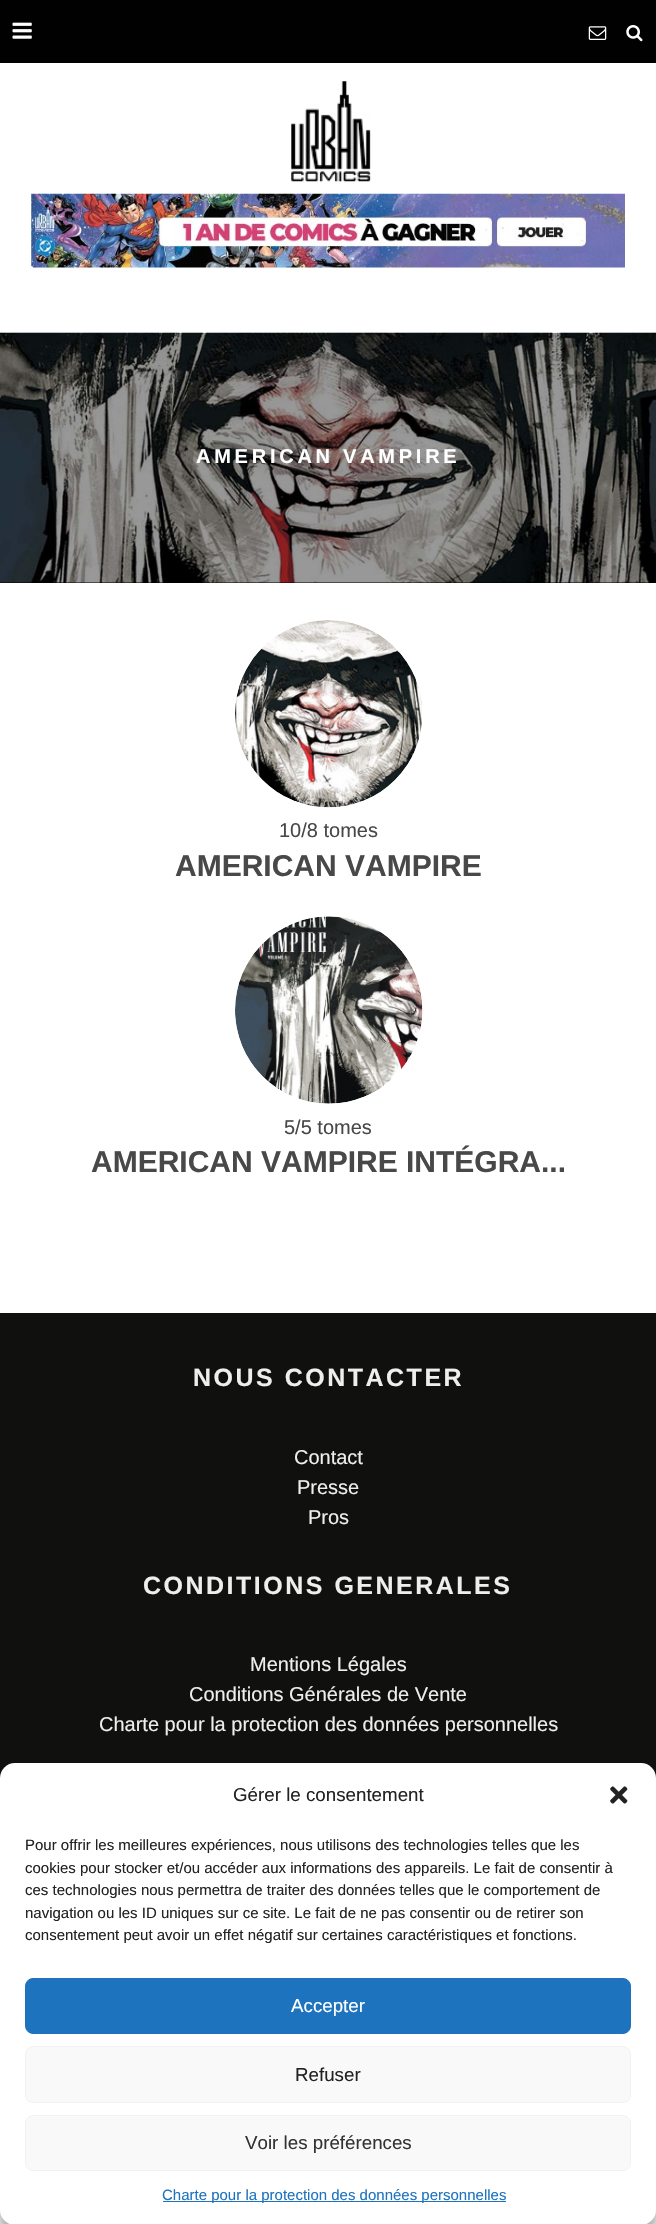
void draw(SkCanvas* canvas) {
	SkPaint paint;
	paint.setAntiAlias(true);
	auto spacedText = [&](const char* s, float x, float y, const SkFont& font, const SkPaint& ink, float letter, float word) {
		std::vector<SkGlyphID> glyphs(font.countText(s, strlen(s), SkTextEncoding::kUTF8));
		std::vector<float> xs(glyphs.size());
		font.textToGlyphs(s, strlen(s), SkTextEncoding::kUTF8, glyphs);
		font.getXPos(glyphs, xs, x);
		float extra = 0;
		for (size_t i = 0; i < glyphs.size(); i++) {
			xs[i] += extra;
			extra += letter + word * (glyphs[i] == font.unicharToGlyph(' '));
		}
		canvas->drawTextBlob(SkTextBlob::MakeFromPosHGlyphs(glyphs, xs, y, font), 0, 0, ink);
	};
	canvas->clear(0xffffffff);
	paint.setColor(0xff010101);
	canvas->drawRect(SkRect::MakeXYWH(0, 0, 656, 63), paint);
	canvas->drawImageRect(SkImages::DeferredFromEncodedData(SkData::MakeFromFileName("img1.png")), SkRect::MakeXYWH(12, 22, 20, 17), SkSamplingOptions());
	canvas->drawImageRect(SkImages::DeferredFromEncodedData(SkData::MakeFromFileName("img2.png")), SkRect::MakeXYWH(588, 26, 19, 14), SkSamplingOptions());
	canvas->drawImageRect(SkImages::DeferredFromEncodedData(SkData::MakeFromFileName("img3.png")), SkRect::MakeXYWH(626, 25, 17, 17), SkSamplingOptions());
	canvas->drawImageRect(SkImages::DeferredFromEncodedData(SkData::MakeFromFileName("img4.png")), SkRect::MakeXYWH(291, 81, 80, 101), SkSamplingOptions());
	canvas->drawImageRect(SkImages::DeferredFromEncodedData(SkData::MakeFromFileName("img5.png")), SkRect::MakeXYWH(31, 193, 594, 75), SkSamplingOptions());
	paint.setColor(0xff000000);
	canvas->drawRect(SkRect::MakeXYWH(0, 333, 656, 250), paint);
	canvas->drawImageRect(SkImages::DeferredFromEncodedData(SkData::MakeFromFileName("img6.png")), SkRect::MakeXYWH(0, 332, 656, 251), SkSamplingOptions());
	SkFont f1(fontMgr->matchFamilyStyle("Liberation Sans", SkFontStyle::Bold()), 20);
	f1.setSubpixel(true);
	paint.setColor(0xffffffff);
	spacedText("AMERICAN VAMPIRE", 196, 463, f1, paint, 3.75, 0);
	canvas->drawImageRect(SkImages::DeferredFromEncodedData(SkData::MakeFromFileName("img7.png")), SkRect::MakeXYWH(235, 620, 187, 188), SkSamplingOptions());
	SkFont f2(fontMgr->matchFamilyStyle("Liberation Sans", SkFontStyle::Normal()), 20);
	f2.setSubpixel(true);
	paint.setColor(0xff484848);
	canvas->drawString("10/8 tomes", 279, 837, f2, paint);
	SkFont f3(fontMgr->matchFamilyStyle("Liberation Sans", SkFontStyle::Bold()), 30);
	f3.setSubpixel(true);
	canvas->drawString("AMERICAN VAMPIRE", 175, 876, f3, paint);
	canvas->drawImageRect(SkImages::DeferredFromEncodedData(SkData::MakeFromFileName("img8.png")), SkRect::MakeXYWH(235, 916, 188, 188), SkSamplingOptions());
	canvas->drawString("5/5 tomes", 284, 1134, f2, paint);
	canvas->drawString("AMERICAN VAMPIRE INTÉGRA...", 91, 1172, f3, paint);
	paint.setColor(0xff10100f);
	canvas->drawRect(SkRect::MakeXYWH(0, 1313, 656, 465), paint);
	SkFont f4(fontMgr->matchFamilyStyle("Liberation Sans", SkFontStyle::Bold()), 25);
	f4.setSubpixel(true);
	paint.setColor(0xffeeeeee);
	spacedText("NOUS CONTACTER", 193, 1386, f4, paint, 2.5, 0);
	canvas->drawString("Contact", 294, 1464, f2, paint);
	canvas->drawString("Presse", 297, 1494, f2, paint);
	canvas->drawString("Pros", 308, 1524, f2, paint);
	spacedText("CONDITIONS GENERALES", 143, 1594, f4, paint, 2.5, 0);
	canvas->drawString("Mentions Légales", 250, 1671, f2, paint);
	canvas->drawString("Conditions Générales de Vente", 189, 1701, f2, paint);
	canvas->drawString("Charte pour la protection des données personnelles", 99, 1731, f2, paint);
	paint.setColor(0x3b000000);
	paint.setMaskFilter(SkMaskFilter::MakeBlur(kNormal_SkBlurStyle, 4));
	canvas->drawRoundRect(SkRect::MakeXYWH(0, 1770, 656, 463), 15, 15, paint);
	paint.setMaskFilter(nullptr);
	paint.setColor(0x30000000);
	paint.setMaskFilter(SkMaskFilter::MakeBlur(kNormal_SkBlurStyle, 12.5));
	canvas->drawRoundRect(SkRect::MakeXYWH(0, 1775, 656, 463), 15, 15, paint);
	paint.setMaskFilter(nullptr);
	paint.setColor(0xffffffff);
	canvas->drawRoundRect(SkRect::MakeXYWH(0, 1763, 656, 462), 15, 15, paint);
	SkFont f5(fontMgr->matchFamilyStyle("Liberation Sans", SkFontStyle::Normal()), 18.75);
	f5.setSubpixel(true);
	paint.setColor(0xff222222);
	canvas->drawString("Gérer le consentement", 233, 1801, f5, paint);
	canvas->drawImageRect(SkImages::DeferredFromEncodedData(SkData::MakeFromFileName("img9.png")), SkRect::MakeXYWH(610, 1786, 18, 18), SkSamplingOptions());
	SkFont f6(fontMgr->matchFamilyStyle("Liberation Sans", SkFontStyle::Normal()), 15);
	f6.setSubpixel(true);
	canvas->drawString("Pour offrir les meilleures expériences, nous utilisons des technologies telles que les", 25, 1850, f6, paint);
	canvas->drawString("cookies pour stocker et/ou accéder aux informations des appareils. Le fait de consentir à", 25, 1873, f6, paint);
	canvas->drawString("ces technologies nous permettra de traiter des données telles que le comportement de", 25, 1895, f6, paint);
	canvas->drawString("navigation ou les ID uniques sur ce site. Le fait de ne pas consentir ou de retirer son", 25, 1918, f6, paint);
	canvas->drawString("consentement peut avoir un effet négatif sur certaines caractéristiques et fonctions.", 25, 1940, f6, paint);
	paint.setColor(0xff1e73be);
	canvas->drawRoundRect(SkRect::MakeXYWH(25.5, 1978.5, 605, 55), 7.5, 7.5, paint);
	paint.setStroke(true);
	paint.setStrokeWidth(1);
	canvas->drawRoundRect(SkRect::MakeXYWH(25.5, 1978.5, 605, 55), 7.5, 7.5, paint);
	paint.setStroke(false);
	paint.setColor(0xffffffff);
	canvas->drawString("Accepter", 291, 2012, f5, paint);
	paint.setColor(0xfff9f9f9);
	canvas->drawRoundRect(SkRect::MakeXYWH(25.5, 2046.5, 605, 56), 7.5, 7.5, paint);
	paint.setStroke(true);
	paint.setColor(0xfff2f2f2);
	canvas->drawRoundRect(SkRect::MakeXYWH(25.5, 2046.5, 605, 56), 7.5, 7.5, paint);
	paint.setStroke(false);
	paint.setColor(0xff222222);
	canvas->drawString("Refuser", 295, 2081, f5, paint);
	paint.setColor(0xfff9f9f9);
	canvas->drawRoundRect(SkRect::MakeXYWH(25.5, 2115.5, 605, 55), 7.5, 7.5, paint);
	paint.setStroke(true);
	paint.setColor(0xfff2f2f2);
	canvas->drawRoundRect(SkRect::MakeXYWH(25.5, 2115.5, 605, 55), 7.5, 7.5, paint);
	paint.setStroke(false);
	paint.setColor(0xff333333);
	canvas->drawString("Voir les préférences", 245, 2149, f5, paint);
	paint.setColor(0xff1e73be);
	canvas->drawRect(SkRect::MakeXYWH(163, 2201, 343, 1), paint);
	canvas->drawString("Charte pour la protection des données personnelles", 162, 2200, f6, paint);
}
